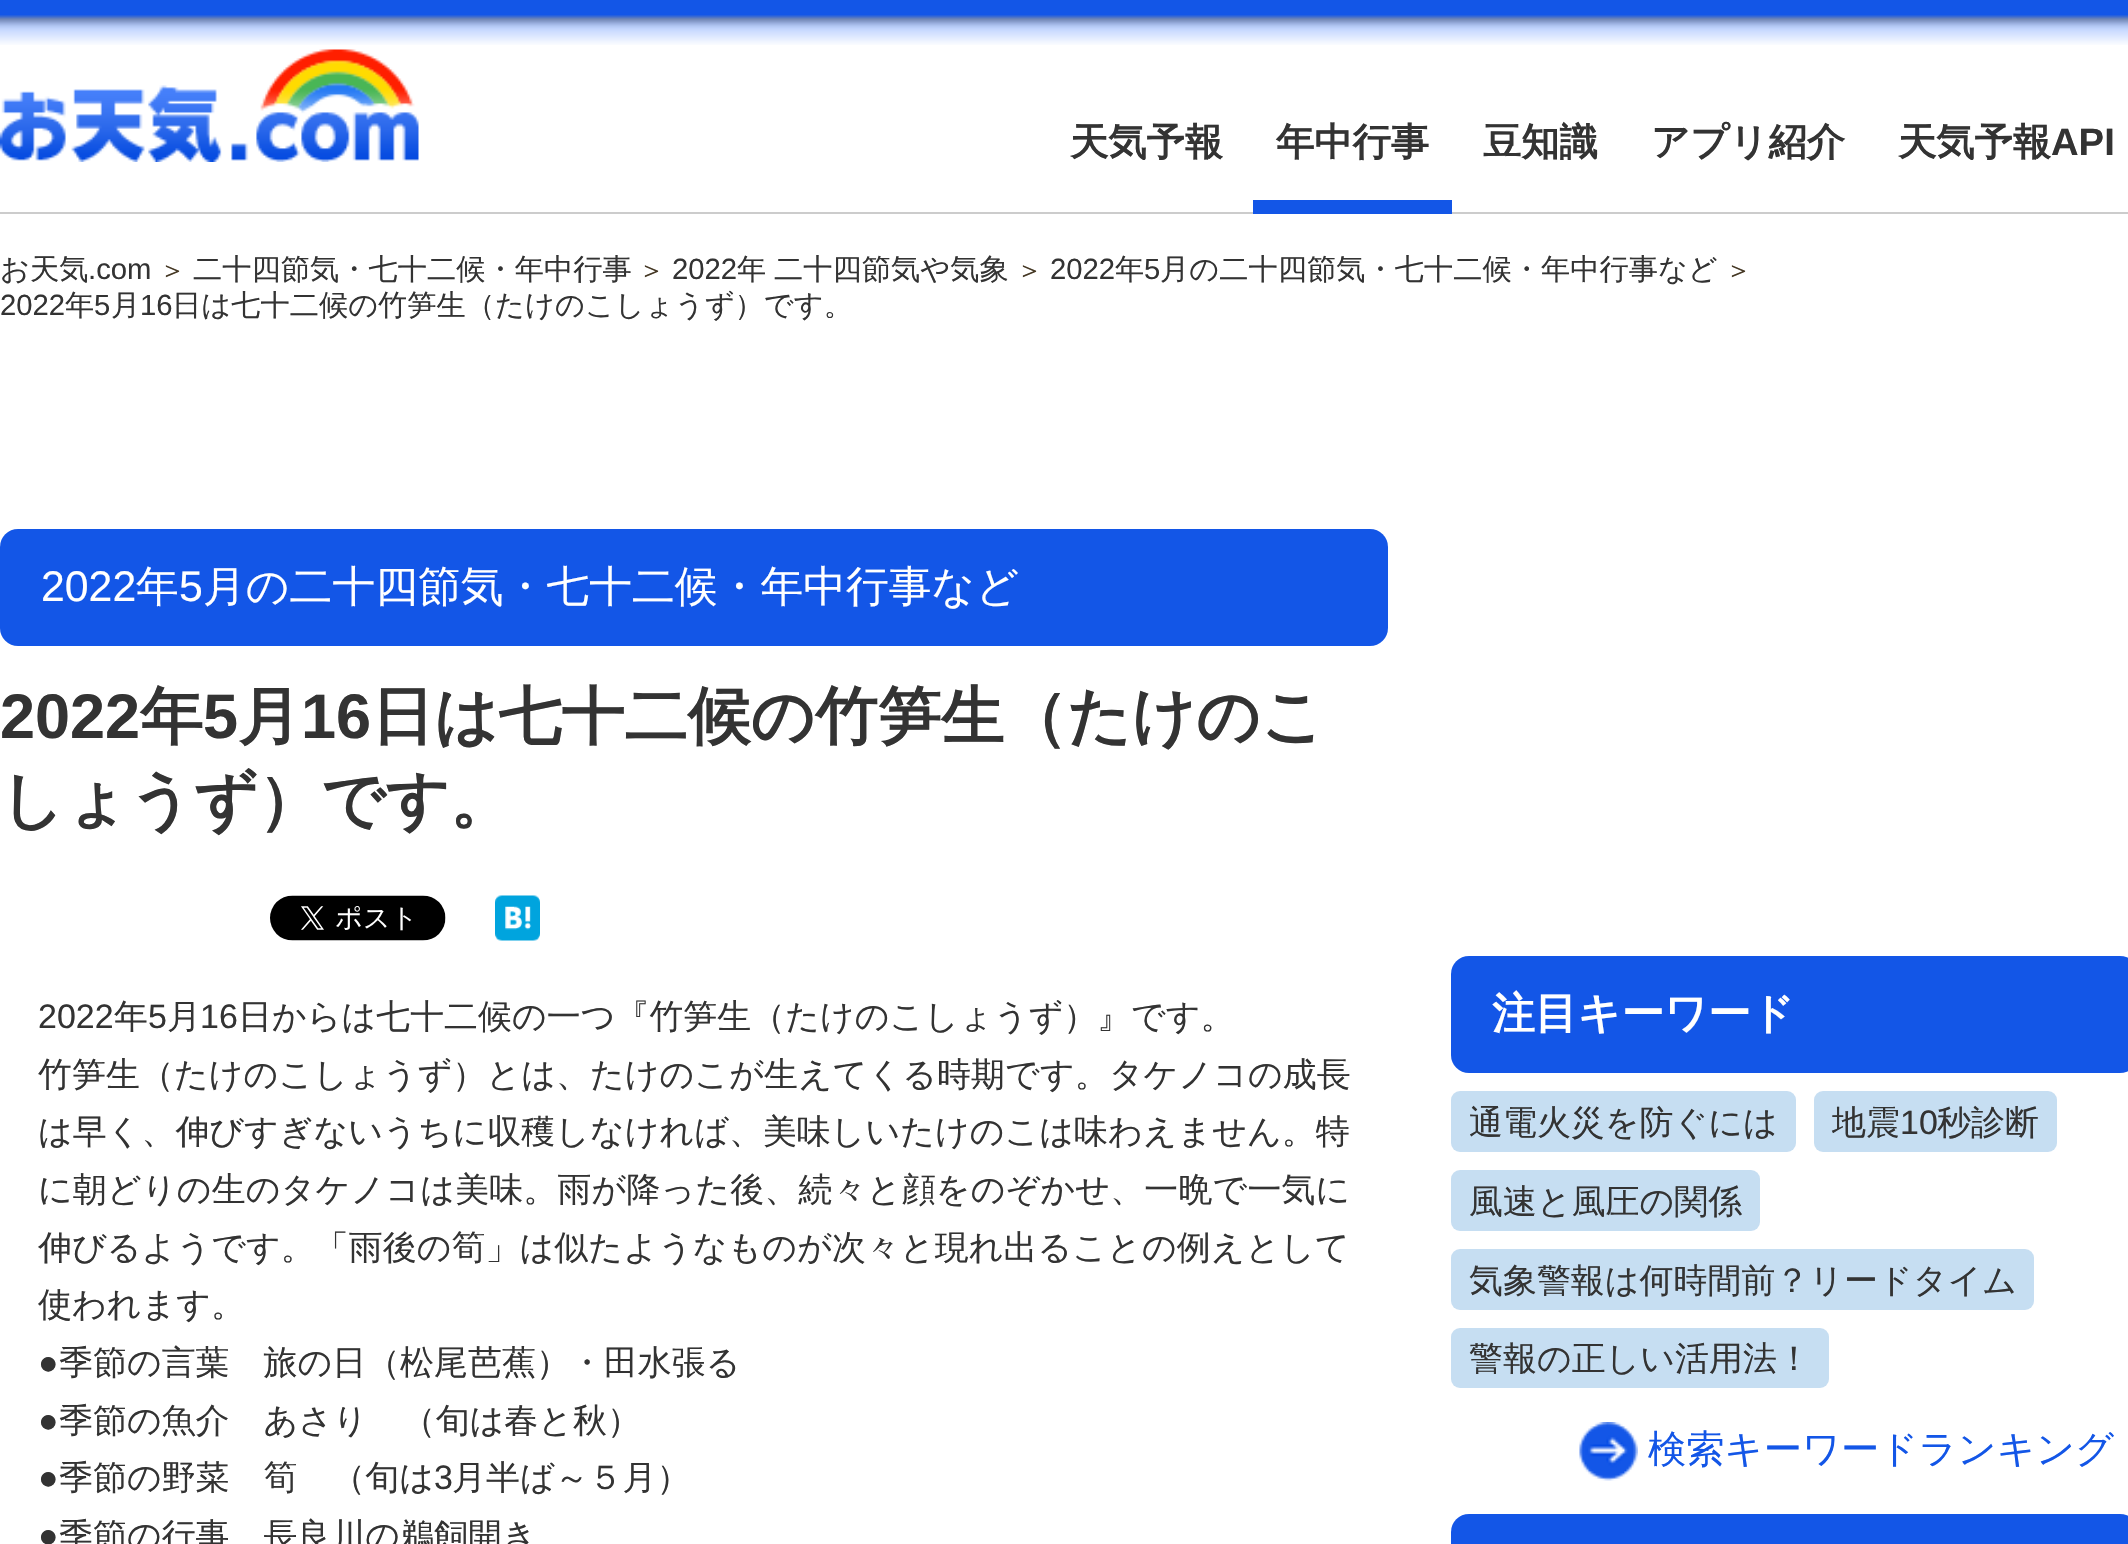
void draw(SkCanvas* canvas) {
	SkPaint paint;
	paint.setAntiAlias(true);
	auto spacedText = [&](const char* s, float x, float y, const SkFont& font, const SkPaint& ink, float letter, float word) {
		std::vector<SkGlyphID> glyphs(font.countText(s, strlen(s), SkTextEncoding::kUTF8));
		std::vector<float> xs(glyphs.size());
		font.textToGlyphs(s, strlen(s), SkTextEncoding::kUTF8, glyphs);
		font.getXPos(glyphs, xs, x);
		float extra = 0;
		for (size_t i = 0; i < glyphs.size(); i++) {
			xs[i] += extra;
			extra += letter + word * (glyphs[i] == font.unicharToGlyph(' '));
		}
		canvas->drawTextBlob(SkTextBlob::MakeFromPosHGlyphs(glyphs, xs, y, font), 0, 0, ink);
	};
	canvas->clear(0xffffffff);
	canvas->drawImageRect(SkImages::DeferredFromEncodedData(SkData::MakeFromFileName("img1.png")), SkRect::MakeXYWH(0, 0, 2128, 45), SkSamplingOptions());
	paint.setColor(0xffcccccc);
	canvas->drawRect(SkRect::MakeXYWH(0, 212, 2128, 2), paint);
	canvas->drawImageRect(SkImages::DeferredFromEncodedData(SkData::MakeFromFileName("img2.png")), SkRect::MakeXYWH(0, 49, 419, 113), SkSamplingOptions());
	SkFont f1(fontMgr->matchFamilyStyle("WenQuanYi Zen Hei", SkFontStyle::Bold()), 38.25);
	f1.setSubpixel(true);
	paint.setColor(0xff333333);
	canvas->drawString("天気予報", 1070, 155, f1, paint);
	paint.setColor(0xff1356e7);
	canvas->drawRect(SkRect::MakeXYWH(1253, 200, 199, 14), paint);
	paint.setColor(0xff333333);
	canvas->drawString("年中行事", 1276, 155, f1, paint);
	canvas->drawString("豆知識", 1483, 155, f1, paint);
	canvas->drawString("アプリ紹介", 1651, 155, f1, paint);
	canvas->drawString("天気予報", 1898, 155, f1, paint);
	SkFont f2(fontMgr->matchFamilyStyle("Liberation Sans", SkFontStyle::Bold()), 38.25);
	f2.setSubpixel(true);
	canvas->drawString("API", 2051, 155, f2, paint);
	SkFont f3(fontMgr->matchFamilyStyle("WenQuanYi Zen Hei", SkFontStyle(500, SkFontStyle::kNormal_Width, SkFontStyle::kUpright_Slant)), 29.25);
	f3.setSubpixel(true);
	canvas->drawString("お天気", 0, 279, f3, paint);
	SkFont f4(fontMgr->matchFamilyStyle("Liberation Sans", SkFontStyle::Normal()), 29.25);
	f4.setSubpixel(true);
	canvas->drawString(".com", 88, 279, f4, paint);
	SkFont f5(fontMgr->matchFamilyStyle("WenQuanYi Zen Hei", SkFontStyle(500, SkFontStyle::kNormal_Width, SkFontStyle::kUpright_Slant)), 27);
	f5.setSubpixel(true);
	paint.setColor(0xff453824);
	canvas->drawString("＞", 159, 279, f5, paint);
	paint.setColor(0xff333333);
	canvas->drawString("二十四節気・七十二候・年中行事", 193, 279, f3, paint);
	paint.setColor(0xff453824);
	canvas->drawString("＞", 638, 279, f5, paint);
	paint.setColor(0xff333333);
	canvas->drawString("2022", 672, 279, f4, paint);
	spacedText("年 二十四節気や気象", 737, 279, f3, paint, 0, -1);
	paint.setColor(0xff453824);
	canvas->drawString("＞", 1016, 279, f5, paint);
	paint.setColor(0xff333333);
	canvas->drawString("2022", 1050, 279, f4, paint);
	canvas->drawString("年", 1115, 279, f3, paint);
	canvas->drawString("5", 1144, 279, f4, paint);
	canvas->drawString("月の二十四節気・七十二候・年中行事など", 1160, 279, f3, paint);
	paint.setColor(0xff453824);
	canvas->drawString("＞", 1725, 279, f5, paint);
	paint.setColor(0xff333333);
	canvas->drawString("2022", 0, 315, f4, paint);
	canvas->drawString("年", 65, 315, f3, paint);
	canvas->drawString("5", 94, 315, f4, paint);
	canvas->drawString("月", 111, 315, f3, paint);
	canvas->drawString("16", 140, 315, f4, paint);
	canvas->drawString("日は七十二候の竹笋生（たけのこしょうず）です。", 172, 315, f3, paint);
	paint.setColor(0xff1356e7);
	canvas->drawRoundRect(SkRect::MakeXYWH(0, 529, 1388, 117), 18, 18, paint);
	SkFont f6(fontMgr->matchFamilyStyle("Liberation Sans", SkFontStyle::Normal()), 42.8);
	f6.setSubpixel(true);
	paint.setColor(0xffffffff);
	canvas->drawString("2022", 41, 601, f6, paint);
	SkFont f7(fontMgr->matchFamilyStyle("WenQuanYi Zen Hei", SkFontStyle(500, SkFontStyle::kNormal_Width, SkFontStyle::kUpright_Slant)), 42.8);
	f7.setSubpixel(true);
	canvas->drawString("年", 136, 601, f7, paint);
	canvas->drawString("5", 179, 601, f6, paint);
	canvas->drawString("月の二十四節気・七十二候・年中行事など", 203, 601, f7, paint);
	SkFont f8(fontMgr->matchFamilyStyle("Liberation Sans", SkFontStyle::Bold()), 63);
	f8.setSubpixel(true);
	paint.setColor(0xff333333);
	canvas->drawString("2022", 0, 738, f8, paint);
	SkFont f9(fontMgr->matchFamilyStyle("WenQuanYi Zen Hei", SkFontStyle::Bold()), 63);
	f9.setSubpixel(true);
	canvas->drawString("年", 140, 738, f9, paint);
	canvas->drawString("5", 203, 738, f8, paint);
	canvas->drawString("月", 238, 738, f9, paint);
	canvas->drawString("16", 301, 738, f8, paint);
	canvas->drawString("日は七十二候の竹笋生（たけのこ", 371, 738, f9, paint);
	canvas->drawString("しょうず）です。", 0, 822, f9, paint);
	canvas->drawImageRect(SkImages::DeferredFromEncodedData(SkData::MakeFromFileName("img3.png")), SkRect::MakeXYWH(270, 895, 176, 46), SkSamplingOptions());
	canvas->drawImageRect(SkImages::DeferredFromEncodedData(SkData::MakeFromFileName("img4.png")), SkRect::MakeXYWH(495, 895, 45, 46), SkSamplingOptions());
	SkFont f10(fontMgr->matchFamilyStyle("Liberation Sans", SkFontStyle::Normal()), 33.95);
	f10.setSubpixel(true);
	canvas->drawString("2022", 38, 1028, f10, paint);
	SkFont f11(fontMgr->matchFamilyStyle("WenQuanYi Zen Hei", SkFontStyle(500, SkFontStyle::kNormal_Width, SkFontStyle::kUpright_Slant)), 33.95);
	f11.setSubpixel(true);
	canvas->drawString("年", 114, 1028, f11, paint);
	canvas->drawString("5", 148, 1028, f10, paint);
	canvas->drawString("月", 167, 1028, f11, paint);
	canvas->drawString("16", 200, 1028, f10, paint);
	canvas->drawString("日からは七十二候の一つ『竹笋生（たけのこしょうず）』です。", 238, 1028, f11, paint);
	spacedText("竹笋生（たけのこしょうず）とは、たけのこが生えてくる時期です。タケノコの成長", 38, 1086, f11, paint, 0.05, 0);
	canvas->drawString("は早く、伸びすぎないうちに収穫しなければ、美味しいたけのこは味わえません。特", 38, 1143, f11, paint);
	spacedText("に朝どりの生のタケノコは美味。雨が降った後、続々と顔をのぞかせ、一晩で一気に", 38, 1201, f11, paint, 0.15, 0);
	spacedText("伸びるようです。「雨後の筍」は似たようなものが次々と現れ出ることの例えとして", 38, 1259, f11, paint, 0.05, 0);
	canvas->drawString("使われます。", 38, 1316, f11, paint);
	canvas->drawString("●", 38, 1374, f10, paint);
	canvas->drawString("季節の言葉　旅の日（松尾芭蕉）・田水張る", 59, 1374, f11, paint);
	canvas->drawString("●", 38, 1432, f10, paint);
	canvas->drawString("季節の魚介　あさり　（旬は春と秋）", 59, 1432, f11, paint);
	canvas->drawString("●", 38, 1489, f10, paint);
	canvas->drawString("季節の野菜　筍　（旬は", 59, 1489, f11, paint);
	canvas->drawString("3", 434, 1489, f10, paint);
	canvas->drawString("月半ば～５月）", 452, 1489, f11, paint);
	canvas->drawString("●", 38, 1547, f10, paint);
	canvas->drawString("季節の行事　長良川の鵜飼開き", 59, 1547, f11, paint);
	paint.setColor(0xff1356e7);
	canvas->drawRoundRect(SkRect::MakeXYWH(1451, 956, 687, 117), 18, 18, paint);
	SkFont f12(fontMgr->matchFamilyStyle("WenQuanYi Zen Hei", SkFontStyle::Bold()), 42.8);
	f12.setSubpixel(true);
	paint.setColor(0xffffffff);
	canvas->drawString("注目キーワード", 1492, 1028, f12, paint);
	paint.setColor(0xffc6def2);
	canvas->drawRoundRect(SkRect::MakeXYWH(1451, 1091, 345, 61), 9, 9, paint);
	paint.setColor(0xff333333);
	canvas->drawString("通電火災を防ぐには", 1469, 1134, f11, paint);
	paint.setColor(0xffc6def2);
	canvas->drawRoundRect(SkRect::MakeXYWH(1814, 1091, 243, 61), 9, 9, paint);
	paint.setColor(0xff333333);
	canvas->drawString("地震", 1832, 1134, f11, paint);
	canvas->drawString("10", 1900, 1134, f10, paint);
	canvas->drawString("秒診断", 1937, 1134, f11, paint);
	paint.setColor(0xffc6def2);
	canvas->drawRoundRect(SkRect::MakeXYWH(1451, 1170, 309, 61), 9, 9, paint);
	paint.setColor(0xff333333);
	canvas->drawString("風速と風圧の関係", 1469, 1213, f11, paint);
	paint.setColor(0xffc6def2);
	canvas->drawRoundRect(SkRect::MakeXYWH(1451, 1249, 583, 61), 9, 9, paint);
	paint.setColor(0xff333333);
	canvas->drawString("気象警報は何時間前？リードタイム", 1469, 1292, f11, paint);
	paint.setColor(0xffc6def2);
	canvas->drawRoundRect(SkRect::MakeXYWH(1451, 1328, 378, 60), 9, 9, paint);
	paint.setColor(0xff333333);
	canvas->drawString("警報の正しい活用法！", 1469, 1370, f11, paint);
	canvas->drawImageRect(SkImages::DeferredFromEncodedData(SkData::MakeFromFileName("img5.png")), SkRect::MakeXYWH(1579, 1422, 59, 59), SkSamplingOptions());
	SkFont f13(fontMgr->matchFamilyStyle("WenQuanYi Zen Hei", SkFontStyle(500, SkFontStyle::kNormal_Width, SkFontStyle::kUpright_Slant)), 38.25);
	f13.setSubpixel(true);
	paint.setColor(0xff1356e7);
	canvas->drawString("検索キーワードランキング", 1648, 1462, f13, paint);
	canvas->drawRoundRect(SkRect::MakeXYWH(1451, 1514, 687, 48), 18, 18, paint);
}
